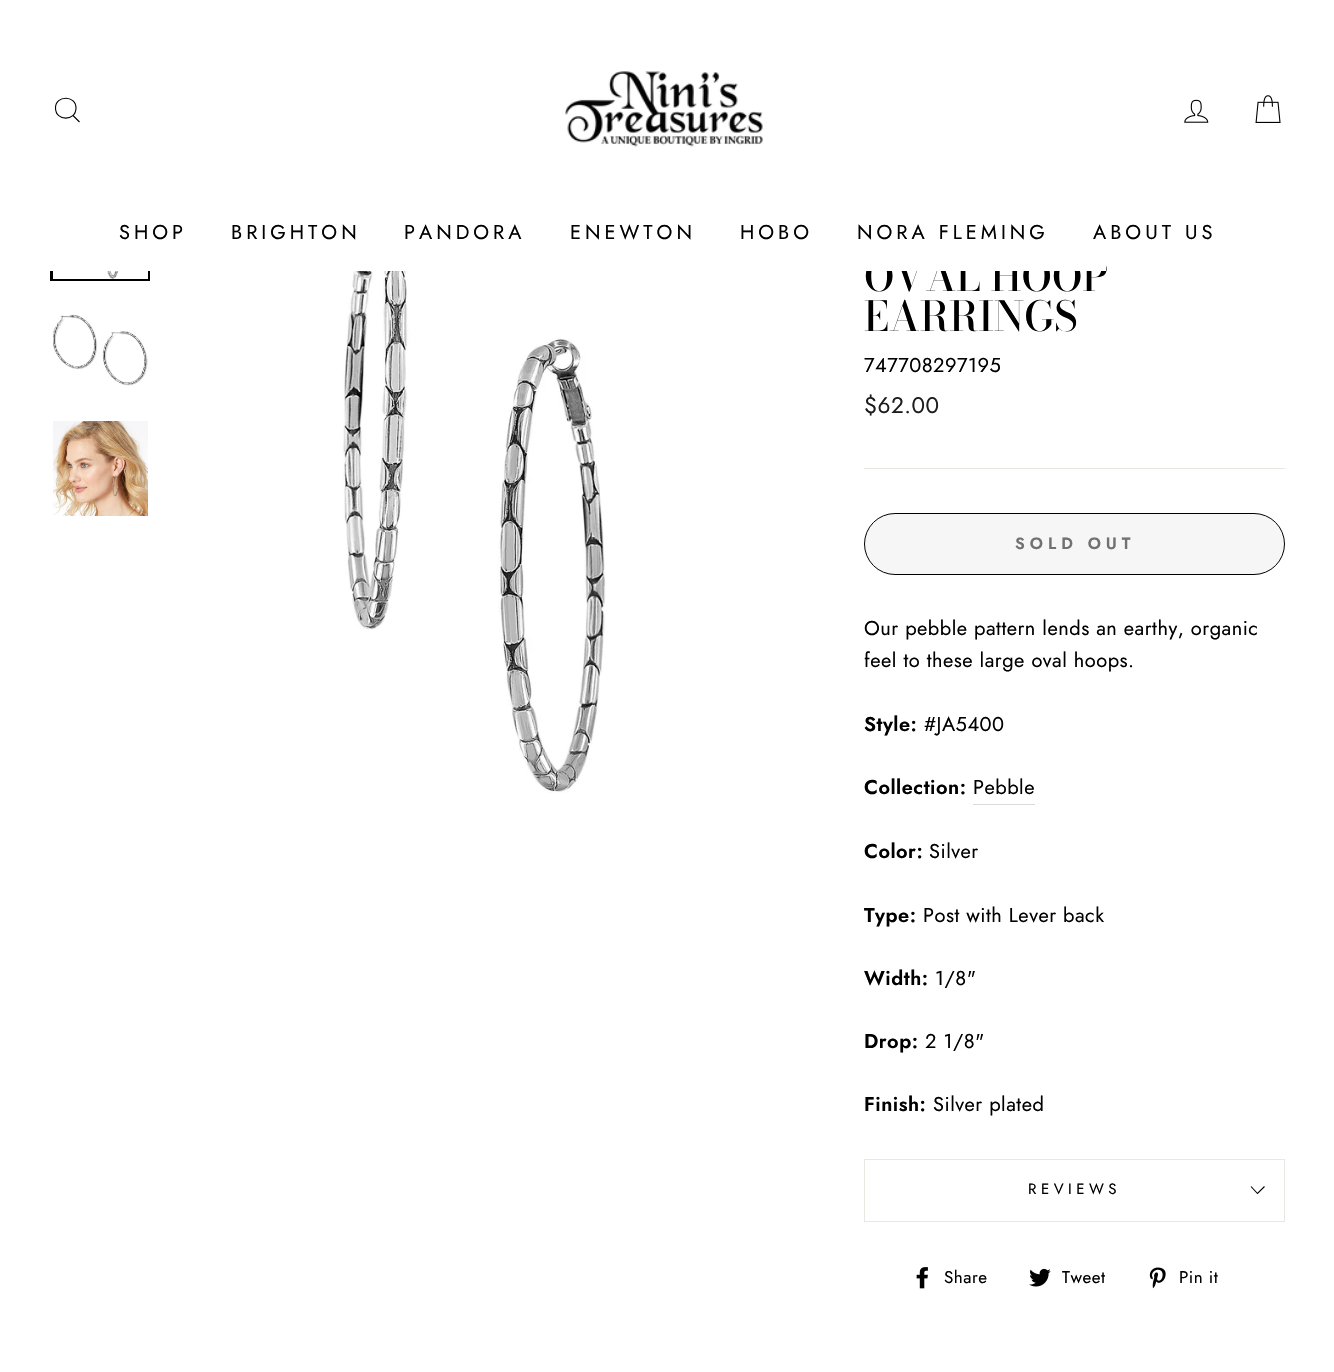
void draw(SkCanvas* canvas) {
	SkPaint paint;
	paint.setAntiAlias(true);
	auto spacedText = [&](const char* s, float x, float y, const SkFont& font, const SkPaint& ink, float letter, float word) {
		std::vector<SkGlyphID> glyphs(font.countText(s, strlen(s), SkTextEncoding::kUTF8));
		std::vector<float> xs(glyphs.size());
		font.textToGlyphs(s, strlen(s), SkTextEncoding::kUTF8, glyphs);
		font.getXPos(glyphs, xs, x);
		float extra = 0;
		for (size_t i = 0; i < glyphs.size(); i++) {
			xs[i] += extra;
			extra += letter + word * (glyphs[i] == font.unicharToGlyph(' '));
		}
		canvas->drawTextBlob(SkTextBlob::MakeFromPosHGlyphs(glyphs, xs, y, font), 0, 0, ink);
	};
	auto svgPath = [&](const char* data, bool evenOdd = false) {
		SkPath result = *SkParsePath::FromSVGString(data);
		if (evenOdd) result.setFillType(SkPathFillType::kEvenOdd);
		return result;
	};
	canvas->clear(0xffffffff);
	paint.setStroke(true);
	paint.setStrokeWidth(3);
	paint.setColor(0xff000000);
	canvas->drawRect(SkRect::MakeXYWH(51.5, 182.5, 97, 97), paint);
	SkFont f1(fontMgr->matchFamilyStyle("Bodoni Moda", SkFontStyle(500, SkFontStyle::kNormal_Width, SkFontStyle::kUpright_Slant)), 41);
	f1.setSubpixel(true);
	paint.setStroke(false);
	canvas->drawString("OVAL HOOP", 864, 291, f1, paint);
	paint.setColor(0xffffffff);
	canvas->drawRect(SkRect::MakeXYWH(50, 181, 1056, 90), paint);
	paint.setStroke(true);
	paint.setStrokeWidth(1.1);
	paint.setColor(0xff000000);
	canvas->drawPath(svgPath("M76 108C76 121.5 55.5 121.5 55.5 108C55.5 95 76 95 76 108ZM79.5 122L73 115.5"), paint);
	canvas->drawImageRect(SkImages::DeferredFromEncodedData(SkData::MakeFromFileName("img1.png")), SkRect::MakeXYWH(565, 71, 198, 76), SkSamplingOptions());
	canvas->drawImageRect(SkImages::DeferredFromEncodedData(SkData::MakeFromFileName("img2.png")), SkRect::MakeXYWH(1184, 99, 25, 24), SkSamplingOptions());
	canvas->drawImageRect(SkImages::DeferredFromEncodedData(SkData::MakeFromFileName("img3.png")), SkRect::MakeXYWH(1255, 95, 26, 28), SkSamplingOptions());
	SkFont f2(fontMgr->matchFamilyStyle("Jost", SkFontStyle::Normal()), 20);
	f2.setSubpixel(true);
	paint.setStroke(false);
	spacedText("SHOP", 119, 239, f2, paint, 4, 0);
	spacedText("BRIGHTON", 231, 239, f2, paint, 4, 0);
	spacedText("PANDORA", 404, 239, f2, paint, 4, 0);
	spacedText("ENEWTON", 570, 239, f2, paint, 4, 0);
	spacedText("HOBO", 740, 239, f2, paint, 4, 0);
	spacedText("NORA FLEMING", 857, 239, f2, paint, 4, 0);
	spacedText("ABOUT US", 1093, 239, f2, paint, 4, 0);
	paint.setColor(0xffffffff);
	canvas->drawRect(SkRect::MakeXYWH(53, 271, 95, 8), paint);
	canvas->drawImageRect(SkImages::DeferredFromEncodedData(SkData::MakeFromFileName("img4.png")), SkRect::MakeXYWH(79, 271, 42, 8), SkSamplingOptions());
	canvas->drawImageRect(SkImages::DeferredFromEncodedData(SkData::MakeFromFileName("img5.png")), SkRect::MakeXYWH(53, 314, 95, 72), SkSamplingOptions());
	canvas->drawImageRect(SkImages::DeferredFromEncodedData(SkData::MakeFromFileName("img6.png")), SkRect::MakeXYWH(53, 421, 95, 95), SkSamplingOptions());
	canvas->drawImageRect(SkImages::DeferredFromEncodedData(SkData::MakeFromFileName("img7.png")), SkRect::MakeXYWH(342, 271, 264, 522), SkSamplingOptions());
	paint.setColor(0xff000000);
	canvas->drawString("EARRINGS", 864, 331, f1, paint);
	spacedText("747708297195", 864, 372, f2, paint, 0.5, 0);
	SkFont f3(fontMgr->matchFamilyStyle("Jost", SkFontStyle::Normal()), 22.5);
	f3.setSubpixel(true);
	paint.setColor(0xff1c1d1d);
	spacedText("$62.00", 864, 413, f3, paint, 0.5, 0);
	paint.setColor(0xffe8e8e1);
	canvas->drawRect(SkRect::MakeXYWH(864, 468, 421, 1), paint);
	paint.setColor(0xfff6f6f6);
	canvas->drawRoundRect(SkRect::MakeXYWH(864.5, 513.5, 420, 61), 30.5, 30.5, paint);
	paint.setStroke(true);
	paint.setStrokeWidth(1);
	paint.setColor(0xff000000);
	canvas->drawRoundRect(SkRect::MakeXYWH(864.5, 513.5, 420, 61), 30.5, 30.5, paint);
	SkFont f4(fontMgr->matchFamilyStyle("Jost", SkFontStyle(600, SkFontStyle::kNormal_Width, SkFontStyle::kUpright_Slant)), 16.25);
	f4.setSubpixel(true);
	paint.setStroke(false);
	paint.setColor(0xff717171);
	spacedText("SOLD OUT", 1015, 549, f4, paint, 5, 0);
	paint.setColor(0xff000000);
	spacedText("Our pebble pattern lends an earthy, organic", 864, 635, f2, paint, 0.5, 0);
	spacedText("feel to these large oval hoops.", 864, 667, f2, paint, 0.5, 0);
	SkFont f5(fontMgr->matchFamilyStyle("Jost", SkFontStyle(600, SkFontStyle::kNormal_Width, SkFontStyle::kUpright_Slant)), 20);
	f5.setSubpixel(true);
	spacedText("Style:", 864, 731, f5, paint, 0.5, 0);
	spacedText("#JA5400", 924, 731, f2, paint, 0.5, 0);
	spacedText("Collection:", 864, 794, f5, paint, 0.5, 0);
	paint.setColor(0xffd9d9d9);
	canvas->drawRect(SkRect::MakeXYWH(973, 804, 62, 1), paint);
	paint.setColor(0xff000000);
	spacedText("Pebble", 973, 794, f2, paint, 0.5, 0);
	spacedText("Color:", 864, 858, f5, paint, 0.5, 0);
	spacedText("Silver", 929, 858, f2, paint, 0.5, 0);
	spacedText("Type:", 864, 922, f5, paint, 0.5, 0);
	spacedText("Post with Lever back", 923, 922, f2, paint, 0.5, 0);
	spacedText("Width:", 864, 985, f5, paint, 0.5, 0);
	spacedText("1/8\"", 935, 985, f2, paint, 0.5, 0);
	spacedText("Drop:", 864, 1048, f5, paint, 0.5, 0);
	spacedText("2 1/8\"", 925, 1048, f2, paint, 0.5, 0);
	spacedText("Finish:", 864, 1111, f5, paint, 0.5, 0);
	spacedText("Silver plated", 933, 1111, f2, paint, 0.5, 0);
	paint.setColor(0xffe8e8e1);
	canvas->drawRect(SkRect::MakeXYWH(864, 1221, 421, 1), paint);
	canvas->drawRect(SkRect::MakeXYWH(864, 1159, 421, 1), paint);
	canvas->drawRect(SkRect::MakeXYWH(1284, 1159, 1, 62), paint);
	canvas->drawRect(SkRect::MakeXYWH(864, 1159, 1, 62), paint);
	SkFont f6(fontMgr->matchFamilyStyle("Jost", SkFontStyle::Normal()), 15);
	f6.setSubpixel(true);
	paint.setColor(0xff000000);
	spacedText("REVIEWS", 1028, 1194, f6, paint, 4.5, 0);
	paint.setStroke(true);
	paint.setStrokeWidth(1.1);
	canvas->drawPath(svgPath("M1251 1186.5L1257.5 1193.5L1264.5 1186.5"), paint);
	canvas->drawImageRect(SkImages::DeferredFromEncodedData(SkData::MakeFromFileName("img8.png")), SkRect::MakeXYWH(916, 1267, 12, 22), SkSamplingOptions());
	SkFont f7(fontMgr->matchFamilyStyle("Jost", SkFontStyle::Normal()), 17);
	f7.setSubpixel(true);
	paint.setStroke(false);
	spacedText("Share", 944, 1283, f7, paint, 0.5, 0);
	canvas->drawImageRect(SkImages::DeferredFromEncodedData(SkData::MakeFromFileName("img9.png")), SkRect::MakeXYWH(1029, 1268, 22, 19), SkSamplingOptions());
	spacedText("Tweet", 1062, 1283, f7, paint, 0.5, 0);
	canvas->drawImageRect(SkImages::DeferredFromEncodedData(SkData::MakeFromFileName("img10.png")), SkRect::MakeXYWH(1149, 1267, 17, 22), SkSamplingOptions());
	spacedText("Pin it", 1179, 1283, f7, paint, 0.5, 0);
}
